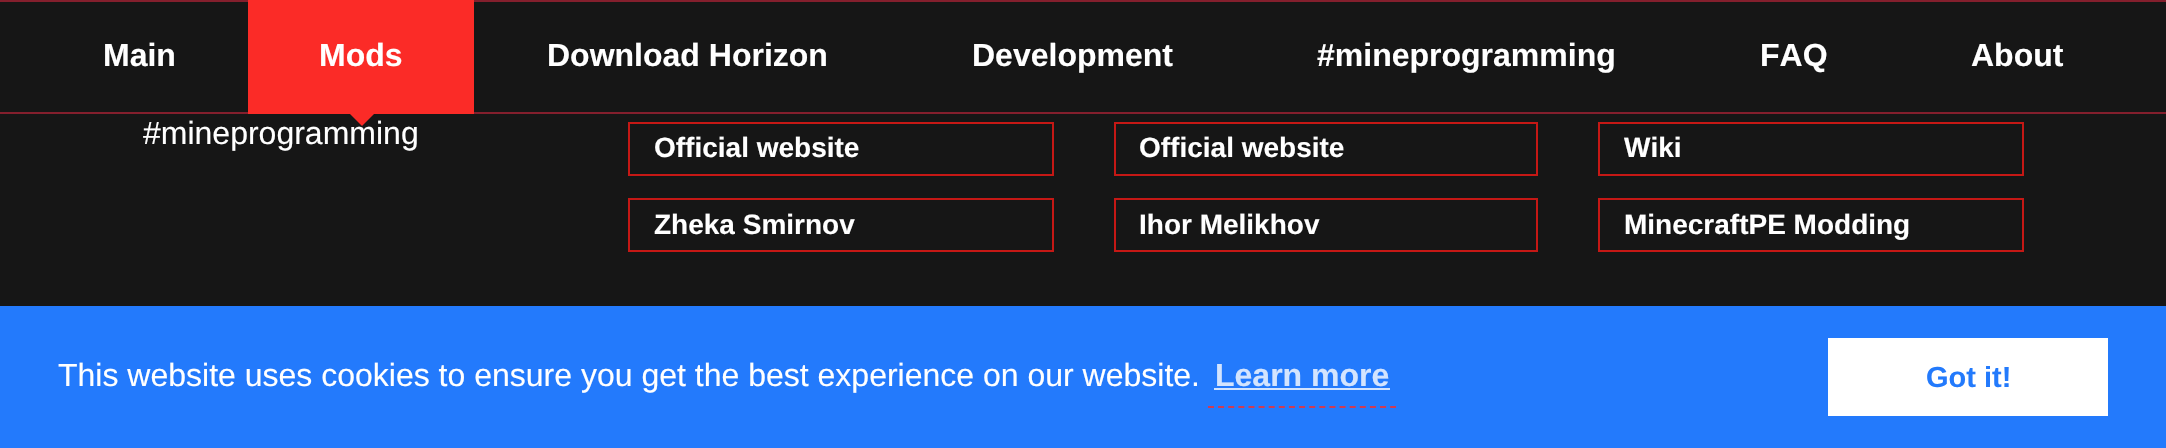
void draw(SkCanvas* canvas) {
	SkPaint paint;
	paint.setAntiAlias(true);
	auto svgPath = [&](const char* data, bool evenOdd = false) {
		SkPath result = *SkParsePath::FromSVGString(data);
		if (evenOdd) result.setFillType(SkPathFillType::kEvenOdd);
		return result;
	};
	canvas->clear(0xff161616);
	paint.setColor(0xff841f2d);
	canvas->drawRect(SkRect::MakeXYWH(0, 0, 2166, 2), paint);
	canvas->drawRect(SkRect::MakeXYWH(0, 112, 2166, 2), paint);
	SkFont f1(fontMgr->matchFamilyStyle("Liberation Sans", SkFontStyle::Bold()), 32);
	f1.setSubpixel(true);
	paint.setColor(0xffffffff);
	canvas->drawString("Main", 103, 66, f1, paint);
	paint.setColor(0xfffb2b27);
	canvas->drawRect(SkRect::MakeXYWH(248, 0, 226, 114), paint);
	paint.setColor(0xffffffff);
	canvas->drawString("Mods", 319, 66, f1, paint);
	SkFont f2(fontMgr->matchFamilyStyle("Liberation Sans", SkFontStyle::Normal()), 32);
	f2.setSubpixel(true);
	canvas->drawString("#mineprogramming", 143, 144, f2, paint);
	paint.setColor(0xfffb2b27);
	canvas->drawPath(svgPath("M350 114H374L362 126Z"), paint);
	paint.setColor(0xffffffff);
	canvas->drawString("Download Horizon", 547, 66, f1, paint);
	canvas->drawString("Development", 972, 66, f1, paint);
	canvas->drawString("#mineprogramming", 1317, 66, f1, paint);
	canvas->drawString("FAQ", 1760, 66, f1, paint);
	canvas->drawString("About", 1971, 66, f1, paint);
	paint.setStroke(true);
	paint.setStrokeWidth(2);
	paint.setColor(0xffc51815);
	canvas->drawRect(SkRect::MakeXYWH(629, 123, 424, 52), paint);
	SkFont f3(fontMgr->matchFamilyStyle("Liberation Sans", SkFontStyle::Bold()), 28);
	f3.setSubpixel(true);
	paint.setStroke(false);
	paint.setColor(0xffffffff);
	canvas->drawString("Official website", 654, 157, f3, paint);
	paint.setStroke(true);
	paint.setColor(0xffc51815);
	canvas->drawRect(SkRect::MakeXYWH(629, 199, 424, 52), paint);
	paint.setStroke(false);
	paint.setColor(0xffffffff);
	canvas->drawString("Zheka Smirnov", 654, 234, f3, paint);
	paint.setStroke(true);
	paint.setColor(0xffc51815);
	canvas->drawRect(SkRect::MakeXYWH(1115, 123, 422, 52), paint);
	paint.setStroke(false);
	paint.setColor(0xffffffff);
	canvas->drawString("Official website", 1139, 157, f3, paint);
	paint.setStroke(true);
	paint.setColor(0xffc51815);
	canvas->drawRect(SkRect::MakeXYWH(1115, 199, 422, 52), paint);
	paint.setStroke(false);
	paint.setColor(0xffffffff);
	canvas->drawString("Ihor Melikhov", 1139, 234, f3, paint);
	paint.setStroke(true);
	paint.setColor(0xffc51815);
	canvas->drawRect(SkRect::MakeXYWH(1599, 123, 424, 52), paint);
	paint.setStroke(false);
	paint.setColor(0xffffffff);
	canvas->drawString("Wiki", 1624, 157, f3, paint);
	paint.setStroke(true);
	paint.setColor(0xffc51815);
	canvas->drawRect(SkRect::MakeXYWH(1599, 199, 424, 52), paint);
	paint.setStroke(false);
	paint.setColor(0xffffffff);
	canvas->drawString("MinecraftPE Modding", 1624, 234, f3, paint);
	paint.setColor(0xff237afc);
	canvas->drawRect(SkRect::MakeXYWH(0, 306, 2166, 142), paint);
	paint.setColor(0xffffffff);
	canvas->drawString("This website uses cookies to ensure you get the best experience on our website.", 58, 386, f2, paint);
	paint.setStroke(true);
	paint.setColor(0xffd03b52);
	paint.setPathEffect(SkDashPathEffect::Make({{6, 4.12f}}, 0));
	canvas->drawPath(svgPath("M1208 407H1396"), paint);
	paint.setPathEffect(nullptr);
	paint.setStroke(false);
	paint.setColor(0xffd3e4fe);
	canvas->drawString("Learn more", 1215, 386, f1, paint);
	canvas->drawRect(SkRect::MakeXYWH(1214, 388, 176, 2), paint);
	paint.setColor(0xffffffff);
	canvas->drawRect(SkRect::MakeXYWH(1828, 338, 280, 78), paint);
	SkFont f4(fontMgr->matchFamilyStyle("Liberation Sans", SkFontStyle::Bold()), 29);
	f4.setSubpixel(true);
	paint.setColor(0xff237afc);
	canvas->drawString("Got it!", 1926, 387, f4, paint);
}
